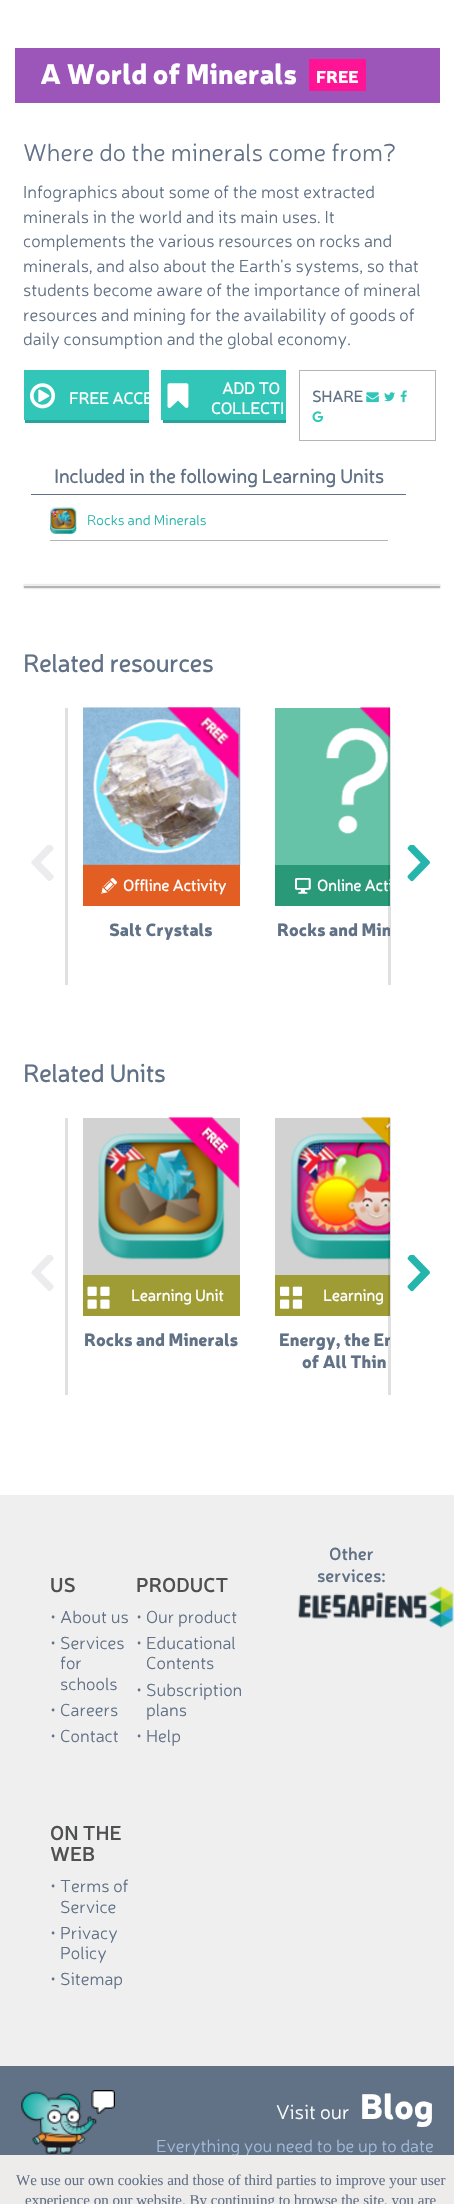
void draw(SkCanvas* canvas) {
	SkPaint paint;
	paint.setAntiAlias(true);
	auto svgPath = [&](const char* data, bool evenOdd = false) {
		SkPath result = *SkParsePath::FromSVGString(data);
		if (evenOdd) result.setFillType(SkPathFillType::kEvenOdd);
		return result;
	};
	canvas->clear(0xffffffff);
	paint.setColor(0xff9c56b9);
	canvas->drawRect(SkRect::MakeXYWH(15, 48, 425, 55), paint);
	SkFont f1(fontMgr->matchFamilyStyle("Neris", SkFontStyle(900, SkFontStyle::kNormal_Width, SkFontStyle::kUpright_Slant)), 28);
	f1.setSubpixel(true);
	paint.setColor(0xffffffff);
	canvas->drawString("A World of Minerals", 40, 84, f1, paint);
	paint.setColor(0xffff1496);
	canvas->drawRect(SkRect::MakeXYWH(309, 59, 57, 32), paint);
	SkFont f2(fontMgr->matchFamilyStyle("Neris", SkFontStyle(900, SkFontStyle::kNormal_Width, SkFontStyle::kUpright_Slant)), 17);
	f2.setSubpixel(true);
	paint.setColor(0xffffffff);
	canvas->drawString("FREE", 316, 83, f2, paint);
	SkFont f3(fontMgr->matchFamilyStyle("Neris", SkFontStyle(300, SkFontStyle::kNormal_Width, SkFontStyle::kUpright_Slant)), 24.5);
	f3.setSubpixel(true);
	paint.setColor(0xff617186);
	canvas->drawString("Where do the minerals come from?", 23, 161, f3, paint);
	SkFont f4(fontMgr->matchFamilyStyle("Neris", SkFontStyle(300, SkFontStyle::kNormal_Width, SkFontStyle::kUpright_Slant)), 17.5);
	f4.setSubpixel(true);
	canvas->drawString("Infographics about some of the most extracted", 23, 198, f4, paint);
	canvas->drawString("minerals in the world and its main uses. It", 23, 223, f4, paint);
	canvas->drawString("complements the various resources on rocks and", 23, 247, f4, paint);
	canvas->drawString("minerals, and also about the Earth's systems, so that", 23, 272, f4, paint);
	canvas->drawString("students become aware of the importance of mineral", 23, 296, f4, paint);
	canvas->drawString("resources and mining for the availability of goods of", 23, 321, f4, paint);
	canvas->drawString("daily consumption and the global economy.", 23, 345, f4, paint);
	canvas->save();
	canvas->clipRect(SkRect::MakeXYWH(24, 370, 125, 63));
	paint.setColor(0xff27a49c);
	canvas->drawPath(svgPath("M25 420V423H243V373H241V420Z"), paint);
	canvas->restore();
	paint.setColor(0xff32c6b8);
	canvas->drawRect(SkRect::MakeXYWH(24, 370, 125, 50), paint);
	canvas->drawImageRect(SkImages::DeferredFromEncodedData(SkData::MakeFromFileName("img1.png")), SkRect::MakeXYWH(30, 383, 26, 26), SkSamplingOptions());
	canvas->save();
	canvas->clipRect(SkRect::MakeXYWH(24, 370, 125, 63));
	SkFont f5(fontMgr->matchFamilyStyle("Neris", SkFontStyle::Bold()), 16.25);
	f5.setSubpixel(true);
	paint.setColor(0xffffffff);
	canvas->drawString("FREE ACCE", 69, 404, f5, paint);
	canvas->restore();
	canvas->save();
	canvas->clipRect(SkRect::MakeXYWH(161, 370, 125, 63));
	paint.setColor(0xff27a49c);
	canvas->drawPath(svgPath("M163 420V423H380V373H379V420Z"), paint);
	canvas->restore();
	paint.setColor(0xff32c6b8);
	canvas->drawRect(SkRect::MakeXYWH(161, 370, 125, 50), paint);
	canvas->drawImageRect(SkImages::DeferredFromEncodedData(SkData::MakeFromFileName("img2.png")), SkRect::MakeXYWH(167, 383, 22, 25), SkSamplingOptions());
	paint.setColor(0xffffffff);
	canvas->drawString("ADD TO", 222, 394, f5, paint);
	canvas->drawString("COLLECTI", 211, 414, f5, paint);
	paint.setStroke(true);
	paint.setStrokeWidth(1);
	paint.setColor(0xffb5b5b5);
	canvas->drawRect(SkRect::MakeXYWH(299.5, 370.5, 136, 70), paint);
	SkFont f6(fontMgr->matchFamilyStyle("Neris", SkFontStyle::Bold()), 15.75);
	f6.setSubpixel(true);
	paint.setStroke(false);
	paint.setColor(0xff617186);
	canvas->drawString("SHARE", 312, 402, f6, paint);
	canvas->drawImageRect(SkImages::DeferredFromEncodedData(SkData::MakeFromFileName("img3.png")), SkRect::MakeXYWH(366, 392, 13, 11), SkSamplingOptions());
	canvas->drawImageRect(SkImages::DeferredFromEncodedData(SkData::MakeFromFileName("img4.png")), SkRect::MakeXYWH(384, 392, 11, 10), SkSamplingOptions());
	canvas->drawImageRect(SkImages::DeferredFromEncodedData(SkData::MakeFromFileName("img5.png")), SkRect::MakeXYWH(400, 390, 7, 13), SkSamplingOptions());
	canvas->drawImageRect(SkImages::DeferredFromEncodedData(SkData::MakeFromFileName("img6.png")), SkRect::MakeXYWH(312, 411, 12, 12), SkSamplingOptions());
	paint.setColor(0xff617286);
	canvas->drawRect(SkRect::MakeXYWH(31, 494, 375, 1), paint);
	SkFont f7(fontMgr->matchFamilyStyle("Neris", SkFontStyle::Bold()), 19.25);
	f7.setSubpixel(true);
	paint.setColor(0xff617186);
	canvas->drawString("Included in the following Learning Units", 54, 483, f7, paint);
	paint.setColor(0xffb5b5b5);
	canvas->drawRect(SkRect::MakeXYWH(50, 540, 338, 1), paint);
	canvas->drawImageRect(SkImages::DeferredFromEncodedData(SkData::MakeFromFileName("img7.png")), SkRect::MakeXYWH(50, 507, 27, 27), SkSamplingOptions());
	SkFont f8(fontMgr->matchFamilyStyle("Neris", SkFontStyle(300, SkFontStyle::kNormal_Width, SkFontStyle::kUpright_Slant)), 14.25);
	f8.setSubpixel(true);
	paint.setColor(0xff26b5ac);
	canvas->drawString("Rocks and Minerals", 87, 525, f8, paint);
	paint.setColor(0xffb5b5b5);
	paint.setMaskFilter(SkMaskFilter::MakeBlur(kNormal_SkBlurStyle, 1));
	canvas->drawRect(SkRect::MakeXYWH(24, 585, 416, 3), paint);
	paint.setMaskFilter(nullptr);
	canvas->drawRect(SkRect::MakeXYWH(24, 586, 416, 2), paint);
	paint.setColor(0xffeeeeee);
	canvas->drawRect(SkRect::MakeXYWH(24, 585, 416, 1), paint);
	SkFont f9(fontMgr->matchFamilyStyle("Neris", SkFontStyle::Bold()), 24.5);
	f9.setSubpixel(true);
	paint.setColor(0xff617186);
	canvas->drawString("Related resources", 23, 672, f9, paint);
	paint.setColor(0xffe0e0e0);
	canvas->drawRect(SkRect::MakeXYWH(65, 708, 3, 277), paint);
	canvas->drawImageRect(SkImages::DeferredFromEncodedData(SkData::MakeFromFileName("img8.png")), SkRect::MakeXYWH(31, 845, 23, 36), SkSamplingOptions());
	paint.setColor(0xff66c3a8);
	canvas->drawRect(SkRect::MakeXYWH(275, 708, 115, 157), paint);
	canvas->drawImageRect(SkImages::DeferredFromEncodedData(SkData::MakeFromFileName("img14.png")), SkRect::MakeXYWH(326, 727, 63, 107), SkSamplingOptions());
	canvas->drawImageRect(SkImages::DeferredFromEncodedData(SkData::MakeFromFileName("img13.png")), SkRect::MakeXYWH(359, 707, 31, 32), SkSamplingOptions());
	paint.setColor(0xff2a9978);
	canvas->drawRect(SkRect::MakeXYWH(275, 865, 115, 41), paint);
	paint.setColor(0x1f000000);
	canvas->drawRect(SkRect::MakeXYWH(388, 708, 3, 277), paint);
	canvas->drawImageRect(SkImages::DeferredFromEncodedData(SkData::MakeFromFileName("img9.png")), SkRect::MakeXYWH(407, 845, 23, 37), SkSamplingOptions());
	paint.setColor(0xffe35e23);
	canvas->drawRect(SkRect::MakeXYWH(83, 708, 157, 198), paint);
	canvas->drawImageRect(SkImages::DeferredFromEncodedData(SkData::MakeFromFileName("img10.png")), SkRect::MakeXYWH(83, 707, 158, 158), SkSamplingOptions());
	canvas->drawImageRect(SkImages::DeferredFromEncodedData(SkData::MakeFromFileName("img11.png")), SkRect::MakeXYWH(167, 707, 73, 73), SkSamplingOptions());
	canvas->drawImageRect(SkImages::DeferredFromEncodedData(SkData::MakeFromFileName("img12.png")), SkRect::MakeXYWH(101, 878, 16, 16), SkSamplingOptions());
	paint.setColor(0xffffffff);
	canvas->drawString("Offline Activity", 123, 891, f6, paint);
	SkFont f10(fontMgr->matchFamilyStyle("Neris", SkFontStyle(900, SkFontStyle::kNormal_Width, SkFontStyle::kUpright_Slant)), 17.5);
	f10.setSubpixel(true);
	paint.setColor(0xff617186);
	canvas->drawString("Salt Crystals", 109, 936, f10, paint);
	canvas->drawImageRect(SkImages::DeferredFromEncodedData(SkData::MakeFromFileName("img15.png")), SkRect::MakeXYWH(295, 878, 16, 16), SkSamplingOptions());
	canvas->save();
	canvas->clipRect(SkRect::MakeXYWH(275, 865, 115, 41));
	paint.setColor(0xffffffff);
	canvas->drawString("Online Acti", 317, 891, f6, paint);
	canvas->restore();
	canvas->save();
	canvas->clipRect(SkRect::MakeXYWH(275, 919, 115, 21));
	paint.setColor(0xff617186);
	canvas->drawString("Rocks and Min", 277, 936, f10, paint);
	canvas->restore();
	canvas->drawString("Related Units", 23, 1082, f9, paint);
	paint.setColor(0xffe0e0e0);
	canvas->drawRect(SkRect::MakeXYWH(65, 1118, 3, 277), paint);
	canvas->drawImageRect(SkImages::DeferredFromEncodedData(SkData::MakeFromFileName("img8.png")), SkRect::MakeXYWH(31, 1255, 23, 36), SkSamplingOptions());
	paint.setColor(0xffd2d2d2);
	canvas->drawRect(SkRect::MakeXYWH(275, 1118, 115, 157), paint);
	canvas->drawImageRect(SkImages::DeferredFromEncodedData(SkData::MakeFromFileName("img20.png")), SkRect::MakeXYWH(290, 1133, 100, 127), SkSamplingOptions());
	canvas->drawImageRect(SkImages::DeferredFromEncodedData(SkData::MakeFromFileName("img19.png")), SkRect::MakeXYWH(361, 1117, 29, 31), SkSamplingOptions());
	paint.setColor(0xff9f9b35);
	canvas->drawRect(SkRect::MakeXYWH(275, 1275, 115, 41), paint);
	paint.setColor(0x1f000000);
	canvas->drawRect(SkRect::MakeXYWH(388, 1118, 3, 277), paint);
	canvas->drawImageRect(SkImages::DeferredFromEncodedData(SkData::MakeFromFileName("img9.png")), SkRect::MakeXYWH(407, 1255, 23, 37), SkSamplingOptions());
	paint.setColor(0xffd2d2d2);
	canvas->drawRect(SkRect::MakeXYWH(83, 1118, 157, 157), paint);
	canvas->drawImageRect(SkImages::DeferredFromEncodedData(SkData::MakeFromFileName("img17.png")), SkRect::MakeXYWH(98, 1133, 127, 127), SkSamplingOptions());
	canvas->drawImageRect(SkImages::DeferredFromEncodedData(SkData::MakeFromFileName("img16.png")), SkRect::MakeXYWH(168, 1117, 71, 72), SkSamplingOptions());
	paint.setColor(0xff9f9b35);
	canvas->drawRect(SkRect::MakeXYWH(83, 1275, 157, 41), paint);
	canvas->drawImageRect(SkImages::DeferredFromEncodedData(SkData::MakeFromFileName("img18.png")), SkRect::MakeXYWH(87, 1286, 23, 23), SkSamplingOptions());
	paint.setColor(0xffffffff);
	canvas->drawString("Learning Unit", 131, 1301, f6, paint);
	paint.setColor(0xff617186);
	canvas->drawString("Rocks and Minerals", 84, 1346, f10, paint);
	canvas->drawImageRect(SkImages::DeferredFromEncodedData(SkData::MakeFromFileName("img21.png")), SkRect::MakeXYWH(280, 1286, 23, 23), SkSamplingOptions());
	paint.setColor(0xffffffff);
	canvas->drawString("Learning", 323, 1301, f6, paint);
	canvas->save();
	canvas->clipRect(SkRect::MakeXYWH(275, 1329, 115, 44));
	paint.setColor(0xff617186);
	canvas->drawString("Energy, the En", 279, 1346, f10, paint);
	canvas->restore();
	canvas->drawString("of All Thin", 302, 1368, f10, paint);
	paint.setColor(0xffefefef);
	canvas->drawRect(SkRect::MakeXYWH(0, 1495, 454, 571), paint);
	SkFont f11(fontMgr->matchFamilyStyle("Neris", SkFontStyle(600, SkFontStyle::kNormal_Width, SkFontStyle::kUpright_Slant)), 17.5);
	f11.setSubpixel(true);
	paint.setColor(0xff617186);
	canvas->drawString("Other", 329, 1560, f11, paint);
	canvas->drawString("services:", 317, 1582, f11, paint);
	canvas->drawImageRect(SkImages::DeferredFromEncodedData(SkData::MakeFromFileName("img22.png")), SkRect::MakeXYWH(298, 1586, 156, 42), SkSamplingOptions());
	SkFont f12(fontMgr->matchFamilyStyle("Neris", SkFontStyle(600, SkFontStyle::kNormal_Width, SkFontStyle::kUpright_Slant)), 20);
	f12.setSubpixel(true);
	paint.setColor(0xff4f5051);
	canvas->drawString("US", 50, 1592, f12, paint);
	paint.setColor(0xff617186);
	canvas->drawString("•", 50, 1623, f4, paint);
	canvas->drawString("About us", 60, 1623, f4, paint);
	canvas->drawString("•", 50, 1649, f4, paint);
	canvas->drawString("Services", 60, 1649, f4, paint);
	canvas->drawString("for", 60, 1669, f4, paint);
	canvas->drawString("schools", 60, 1690, f4, paint);
	canvas->drawString("•", 50, 1716, f4, paint);
	canvas->drawString("Careers", 60, 1716, f4, paint);
	canvas->drawString("•", 50, 1742, f4, paint);
	canvas->drawString("Contact", 60, 1742, f4, paint);
	paint.setColor(0xff4f5051);
	canvas->drawString("PRODUCT", 136, 1592, f12, paint);
	paint.setColor(0xff617186);
	canvas->drawString("•", 136, 1623, f4, paint);
	canvas->drawString("Our product", 146, 1623, f4, paint);
	canvas->drawString("•", 136, 1649, f4, paint);
	canvas->drawString("Educational", 146, 1649, f4, paint);
	canvas->drawString("Contents", 146, 1669, f4, paint);
	canvas->drawString("•", 136, 1696, f4, paint);
	canvas->drawString("Subscription", 146, 1696, f4, paint);
	canvas->drawString("plans", 146, 1716, f4, paint);
	canvas->drawString("•", 136, 1742, f4, paint);
	canvas->drawString("Help", 146, 1742, f4, paint);
	paint.setColor(0xff4f5051);
	canvas->drawString("ON THE", 50, 1840, f12, paint);
	canvas->drawString("WEB", 50, 1861, f12, paint);
	paint.setColor(0xff617186);
	canvas->drawString("•", 50, 1892, f4, paint);
	canvas->drawString("Terms of", 60, 1892, f4, paint);
	canvas->drawString("Service", 60, 1913, f4, paint);
	canvas->drawString("•", 50, 1939, f4, paint);
	canvas->drawString("Privacy", 60, 1939, f4, paint);
	canvas->drawString("Policy", 60, 1959, f4, paint);
	canvas->drawString("•", 50, 1985, f4, paint);
	canvas->drawString("Sitemap", 60, 1985, f4, paint);
	canvas->drawRect(SkRect::MakeXYWH(0, 2066, 454, 89), paint);
	canvas->drawImageRect(SkImages::DeferredFromEncodedData(SkData::MakeFromFileName("img23.png")), SkRect::MakeXYWH(21, 2090, 94, 64), SkSamplingOptions());
	SkFont f13(fontMgr->matchFamilyStyle("Neris", SkFontStyle(300, SkFontStyle::kNormal_Width, SkFontStyle::kUpright_Slant)), 20);
	f13.setSubpixel(true);
	paint.setColor(0xffffffff);
	canvas->drawString("Visit our", 276, 2119, f13, paint);
	SkFont f14(fontMgr->matchFamilyStyle("Neris", SkFontStyle(900, SkFontStyle::kNormal_Width, SkFontStyle::kUpright_Slant)), 35);
	f14.setSubpixel(true);
	canvas->drawString("Blog", 360, 2119, f14, paint);
	paint.setColor(0xffa3bcdc);
	canvas->drawString("Everything you need to be up to date", 156, 2152, f4, paint);
	paint.setColor(0xffeeebeb);
	canvas->drawRect(SkRect::MakeXYWH(0, 2155, 454, 49), paint);
	SkFont f15(fontMgr->matchFamilyStyle("Liberation Serif", SkFontStyle::Normal()), 15);
	f15.setSubpixel(true);
	paint.setColor(0xff617186);
	canvas->drawString("We use our own cookies and those of third parties to improve your user", 16, 2185, f15, paint);
	canvas->drawString("experience on our website. By continuing to browse the site, you are", 25, 2205, f15, paint);
}
